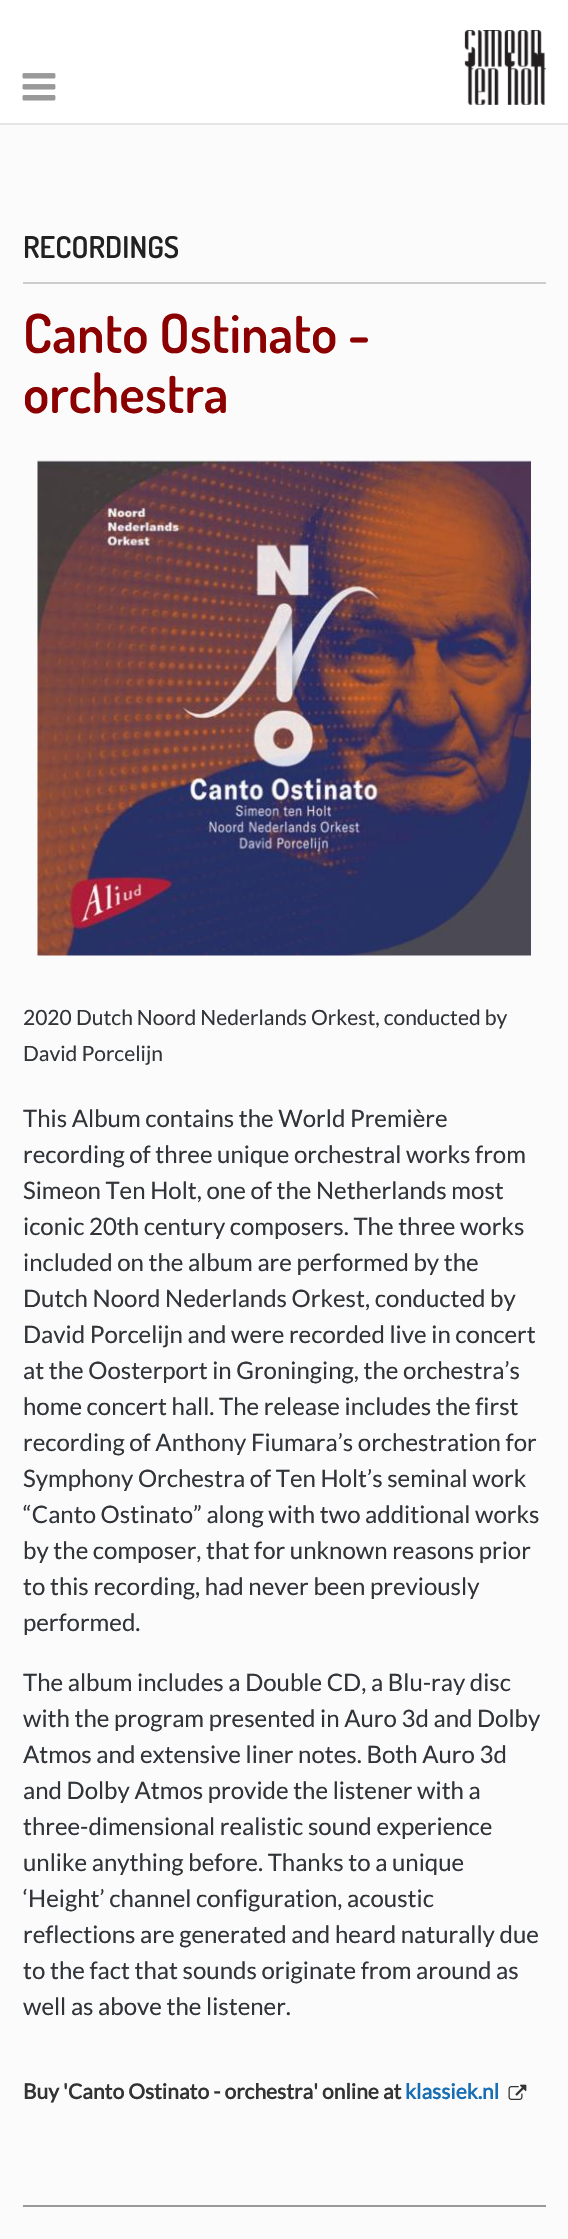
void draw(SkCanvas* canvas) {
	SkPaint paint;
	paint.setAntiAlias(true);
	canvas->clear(0xfffbfbfb);
	paint.setColor(0xffffffff);
	canvas->drawRect(SkRect::MakeXYWH(0, 0, 568, 123), paint);
	paint.setColor(0xffe5e5e5);
	canvas->drawRect(SkRect::MakeXYWH(0, 123, 568, 2), paint);
	canvas->drawImageRect(SkImages::DeferredFromEncodedData(SkData::MakeFromFileName("img1.png")), SkRect::MakeXYWH(22, 73, 34, 28), SkSamplingOptions());
	canvas->drawImageRect(SkImages::DeferredFromEncodedData(SkData::MakeFromFileName("img2.png")), SkRect::MakeXYWH(464, 30, 82, 75), SkSamplingOptions());
	paint.setColor(0xffcccccc);
	canvas->drawRect(SkRect::MakeXYWH(23, 282, 523, 2), paint);
	SkFont f1(fontMgr->matchFamilyStyle("Dosis", SkFontStyle(600, SkFontStyle::kNormal_Width, SkFontStyle::kUpright_Slant)), 30);
	f1.setSubpixel(true);
	paint.setColor(0xff222222);
	canvas->drawString("RECORDINGS", 23, 258, f1, paint);
	SkFont f2(fontMgr->matchFamilyStyle("Dosis", SkFontStyle(600, SkFontStyle::kNormal_Width, SkFontStyle::kUpright_Slant)), 54);
	f2.setSubpixel(true);
	paint.setColor(0xff8b0000);
	canvas->drawString("Canto Ostinato -", 23, 353, f2, paint);
	canvas->drawString("orchestra", 23, 413, f2, paint);
	canvas->drawImageRect(SkImages::DeferredFromEncodedData(SkData::MakeFromFileName("img3.png")), SkRect::MakeXYWH(37, 460, 494, 496), SkSamplingOptions());
	SkFont f3(fontMgr->matchFamilyStyle("Lato", SkFontStyle::Normal()), 21);
	f3.setSubpixel(true);
	paint.setColor(0xff313439);
	canvas->drawString("2020", 23, 1025, f3, paint);
	canvas->drawString("Dutch Noord Nederlands Orkest, conducted by", 76, 1025, f3, paint);
	canvas->drawString("David Porcelijn", 23, 1061, f3, paint);
	SkFont f4(fontMgr->matchFamilyStyle("Lato", SkFontStyle::Normal()), 24);
	f4.setSubpixel(true);
	canvas->drawString("This Album contains the World Première", 23, 1127, f4, paint);
	canvas->drawString("recording of three unique orchestral works from", 23, 1163, f4, paint);
	canvas->drawString("Simeon Ten Holt, one of the Netherlands most", 23, 1199, f4, paint);
	canvas->drawString("iconic 20th century composers. The three works", 23, 1235, f4, paint);
	canvas->drawString("included on the album are performed by the", 23, 1271, f4, paint);
	canvas->drawString("Dutch Noord Nederlands Orkest, conducted by", 23, 1307, f4, paint);
	canvas->drawString("David Porcelijn and were recorded live in concert", 23, 1343, f4, paint);
	canvas->drawString("at the Oosterport in Groninging, the orchestra’s", 23, 1379, f4, paint);
	canvas->drawString("home concert hall. The release includes the first", 23, 1415, f4, paint);
	canvas->drawString("recording of Anthony Fiumara’s orchestration for", 23, 1451, f4, paint);
	canvas->drawString("Symphony Orchestra of Ten Holt’s seminal work", 23, 1487, f4, paint);
	canvas->drawString("“Canto Ostinato” along with two additional works", 23, 1523, f4, paint);
	canvas->drawString("by the composer, that for unknown reasons prior", 23, 1559, f4, paint);
	canvas->drawString("to this recording, had never been previously", 23, 1595, f4, paint);
	canvas->drawString("performed.", 23, 1631, f4, paint);
	canvas->drawString("The album includes a Double CD, a Blu-ray disc", 23, 1691, f4, paint);
	canvas->drawString("with the program presented in Auro 3d and Dolby", 23, 1727, f4, paint);
	canvas->drawString("Atmos and extensive liner notes. Both Auro 3d", 23, 1763, f4, paint);
	canvas->drawString("and Dolby Atmos provide the listener with a", 23, 1799, f4, paint);
	canvas->drawString("three-dimensional realistic sound experience", 23, 1835, f4, paint);
	canvas->drawString("unlike anything before. Thanks to a unique", 23, 1871, f4, paint);
	canvas->drawString("‘Height’ channel configuration, acoustic", 23, 1907, f4, paint);
	canvas->drawString("reflections are generated and heard naturally due", 23, 1943, f4, paint);
	canvas->drawString("to the fact that sounds originate from around as", 23, 1979, f4, paint);
	canvas->drawString("well as above the listener.", 23, 2015, f4, paint);
	SkFont f5(fontMgr->matchFamilyStyle("Lato", SkFontStyle::Bold()), 21);
	f5.setSubpixel(true);
	paint.setColor(0xff333333);
	canvas->drawString("Buy 'Canto Ostinato - orchestra' online at", 23, 2099, f5, paint);
	paint.setColor(0xff186eb4);
	canvas->drawString("klassiek.nl", 405, 2099, f5, paint);
	canvas->drawImageRect(SkImages::DeferredFromEncodedData(SkData::MakeFromFileName("img4.png")), SkRect::MakeXYWH(508, 2084, 19, 16), SkSamplingOptions());
	paint.setColor(0xff999999);
	canvas->drawRect(SkRect::MakeXYWH(23, 2205, 523, 2), paint);
}
